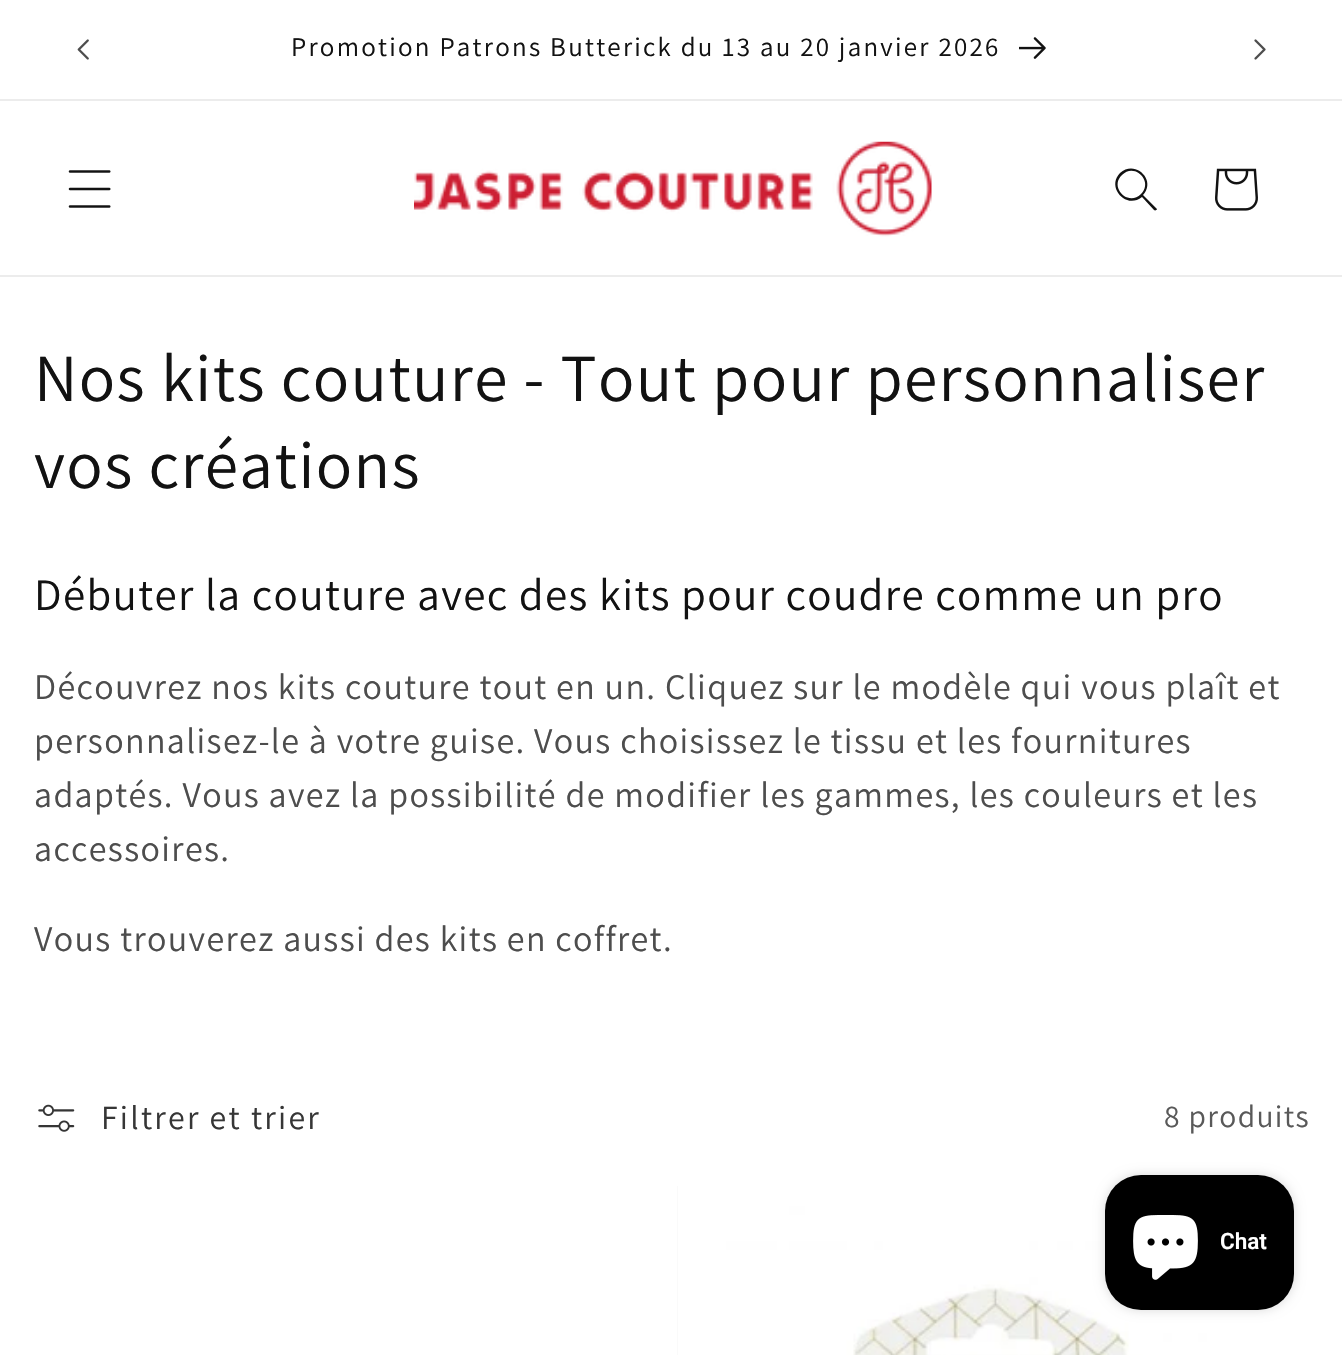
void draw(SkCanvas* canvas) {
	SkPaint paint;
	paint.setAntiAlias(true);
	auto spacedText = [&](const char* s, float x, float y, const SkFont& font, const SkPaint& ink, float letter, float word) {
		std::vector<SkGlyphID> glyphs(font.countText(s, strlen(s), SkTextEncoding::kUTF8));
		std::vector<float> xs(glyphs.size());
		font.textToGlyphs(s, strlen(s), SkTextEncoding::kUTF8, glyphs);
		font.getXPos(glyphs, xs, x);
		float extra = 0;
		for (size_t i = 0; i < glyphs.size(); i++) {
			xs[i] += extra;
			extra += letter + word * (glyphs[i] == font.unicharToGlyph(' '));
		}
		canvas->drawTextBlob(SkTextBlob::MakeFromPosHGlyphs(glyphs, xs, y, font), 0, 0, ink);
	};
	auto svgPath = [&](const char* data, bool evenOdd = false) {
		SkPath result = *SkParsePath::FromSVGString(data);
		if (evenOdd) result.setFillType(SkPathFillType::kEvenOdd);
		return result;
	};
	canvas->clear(0xffffffff);
	paint.setColor(0xffececec);
	canvas->drawRect(SkRect::MakeXYWH(0, 99, 1342, 2), paint);
	canvas->drawImageRect(SkImages::DeferredFromEncodedData(SkData::MakeFromFileName("img1.png")), SkRect::MakeXYWH(77, 39, 12, 21), SkSamplingOptions());
	SkFont f1(fontMgr->matchFamilyStyle("Assistant", SkFontStyle::Normal()), 27);
	f1.setSubpixel(true);
	paint.setColor(0xff121212);
	spacedText("Promotion Patrons Butterick du 13 au 20 janvier 2026", 291, 56, f1, paint, 2.25, 0);
	canvas->drawImageRect(SkImages::DeferredFromEncodedData(SkData::MakeFromFileName("img2.png")), SkRect::MakeXYWH(1019, 37, 27, 22), SkSamplingOptions());
	canvas->drawImageRect(SkImages::DeferredFromEncodedData(SkData::MakeFromFileName("img3.png")), SkRect::MakeXYWH(1254, 39, 12, 21), SkSamplingOptions());
	paint.setColor(0xffececec);
	canvas->drawRect(SkRect::MakeXYWH(0, 275, 1342, 2), paint);
	canvas->drawImageRect(SkImages::DeferredFromEncodedData(SkData::MakeFromFileName("img4.png")), SkRect::MakeXYWH(68, 170, 43, 38), SkSamplingOptions());
	canvas->drawImageRect(SkImages::DeferredFromEncodedData(SkData::MakeFromFileName("img5.png")), SkRect::MakeXYWH(414, 141, 518, 96), SkSamplingOptions());
	paint.setColor(0xff121212);
	canvas->drawPath(svgPath("M1141 194C1128 207 1109 187 1122 175C1134 162 1154 181 1141 194M1142 197C1126 210 1106 187 1120 173C1135 159 1157 180 1143 195L1157 209C1157 210 1155 211 1154 210Z", true), paint);
	canvas->drawImageRect(SkImages::DeferredFromEncodedData(SkData::MakeFromFileName("img6.png")), SkRect::MakeXYWH(1215, 168, 43, 43), SkSamplingOptions());
	SkFont f2(fontMgr->matchFamilyStyle("Assistant", SkFontStyle::Normal()), 67.5);
	f2.setSubpixel(true);
	spacedText("Nos kits couture - Tout pour personnaliser", 34, 401, f2, paint, 1.35, 0);
	spacedText("vos créations", 34, 488, f2, paint, 1.35, 0);
	SkFont f3(fontMgr->matchFamilyStyle("Assistant", SkFontStyle::Normal()), 45);
	f3.setSubpixel(true);
	spacedText("Débuter la couture avec des kits pour coudre comme un pro", 34, 610, f3, paint, 1.35, 0);
	SkFont f4(fontMgr->matchFamilyStyle("Assistant", SkFontStyle::Normal()), 36);
	f4.setSubpixel(true);
	paint.setColor(0xff4d4d4d);
	spacedText("Découvrez nos kits couture tout en un. Cliquez sur le modèle qui vous plaît et", 34, 699, f4, paint, 1.35, 0);
	spacedText("personnalisez-le à votre guise. Vous choisissez le tissu et les fournitures", 34, 753, f4, paint, 1.35, 0);
	spacedText("adaptés. Vous avez la possibilité de modifier les gammes, les couleurs et les", 34, 807, f4, paint, 1.35, 0);
	spacedText("accessoires.", 34, 861, f4, paint, 1.35, 0);
	spacedText("Vous trouverez aussi des kits en coffret.", 34, 951, f4, paint, 1.35, 0);
	canvas->drawImageRect(SkImages::DeferredFromEncodedData(SkData::MakeFromFileName("img7.png")), SkRect::MakeXYWH(38, 1104, 37, 28), SkSamplingOptions());
	SkFont f5(fontMgr->matchFamilyStyle("Assistant", SkFontStyle::Normal()), 33.75);
	f5.setSubpixel(true);
	paint.setColor(0xff363636);
	spacedText("Filtrer et trier", 101, 1129, f5, paint, 2.25, 0);
	SkFont f6(fontMgr->matchFamilyStyle("Assistant", SkFontStyle::Normal()), 31.5);
	f6.setSubpixel(true);
	paint.setColor(0xff595959);
	spacedText("8 produits", 1164, 1127, f6, paint, 1.35, 0);
	paint.setColor(0xfff3f3f3);
	canvas->drawRect(SkRect::MakeXYWH(677, 1186, 1, 169), paint);
	canvas->drawImageRect(SkImages::DeferredFromEncodedData(SkData::MakeFromFileName("img8.png")), SkRect::MakeXYWH(677, 1186, 633, 169), SkSamplingOptions());
	paint.setColor(0x26000000);
	paint.setMaskFilter(SkMaskFilter::MakeBlur(kNormal_SkBlurStyle, 5.5));
	canvas->drawRoundRect(SkRect::MakeXYWH(1105, 1175, 189, 135), 36, 36, paint);
	paint.setMaskFilter(nullptr);
	paint.setColor(0xff000000);
	canvas->drawRoundRect(SkRect::MakeXYWH(1105, 1175, 189, 135), 36, 36, paint);
	canvas->drawImageRect(SkImages::DeferredFromEncodedData(SkData::MakeFromFileName("img9.png")), SkRect::MakeXYWH(1133, 1215, 65, 65), SkSamplingOptions());
	SkFont f7(fontMgr->matchFamilyStyle("Roboto", SkFontStyle(600, SkFontStyle::kNormal_Width, SkFontStyle::kUpright_Slant)), 22.5);
	f7.setSubpixel(true);
	paint.setColor(0xffffffff);
	canvas->drawString("Chat", 1220, 1249, f7, paint);
}
